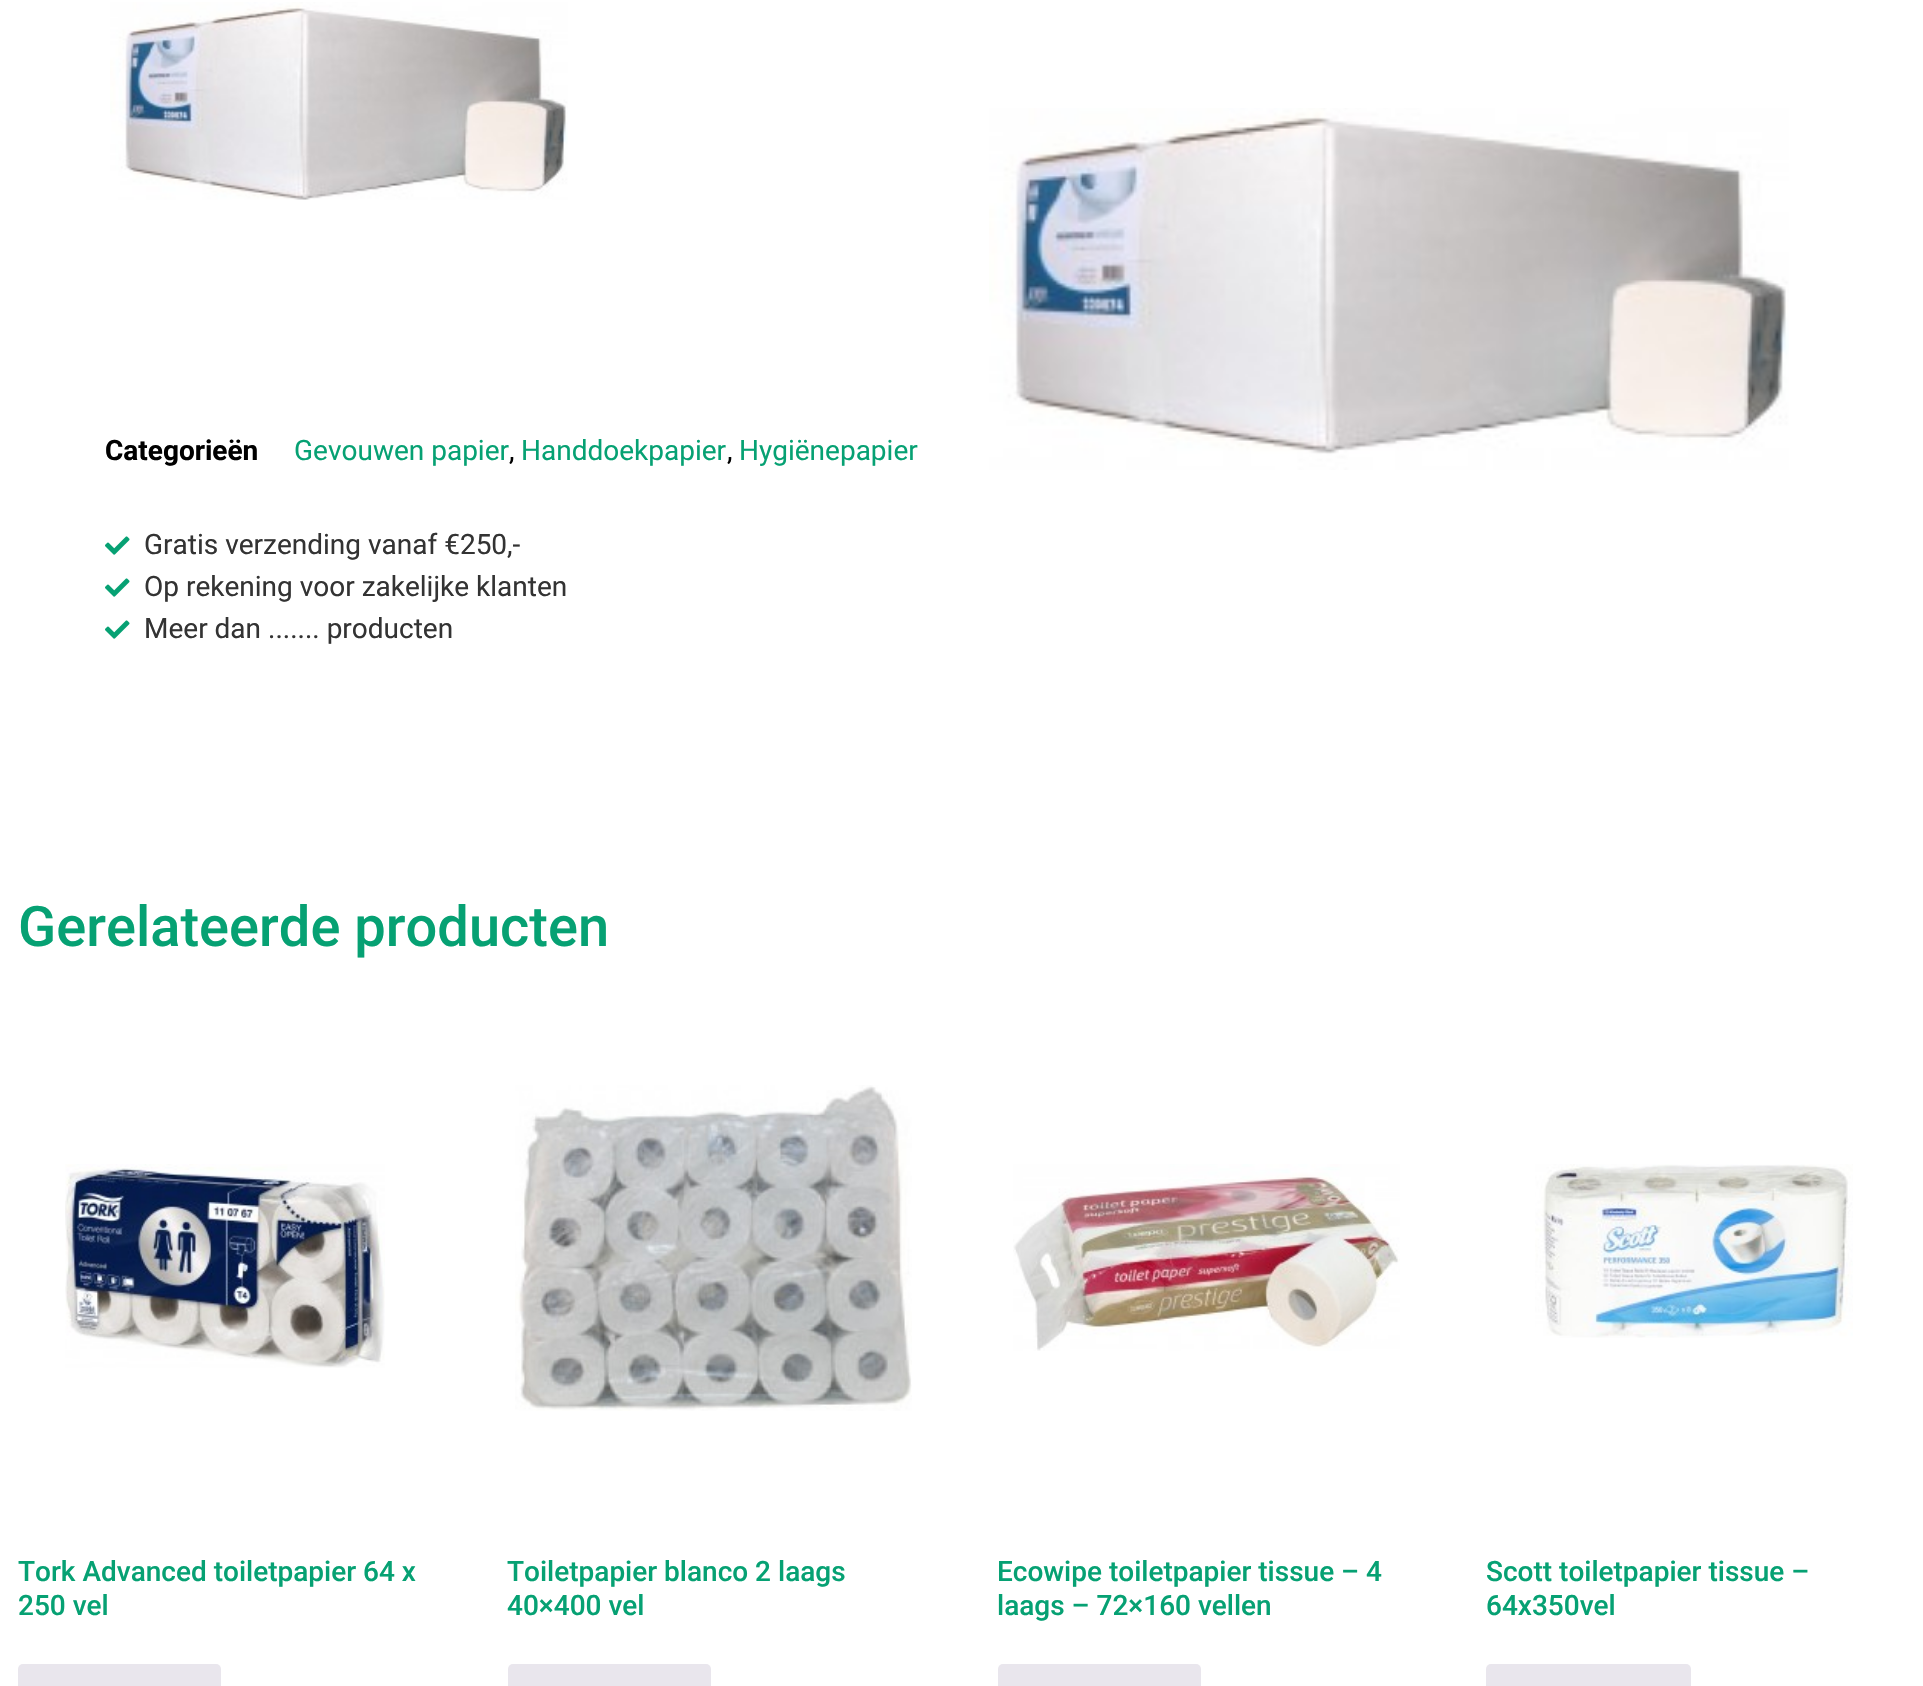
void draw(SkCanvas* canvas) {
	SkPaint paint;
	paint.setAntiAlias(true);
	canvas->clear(0xffffffff);
	canvas->drawImageRect(SkImages::DeferredFromEncodedData(SkData::MakeFromFileName("img1.png")), SkRect::MakeXYWH(989, 108, 800, 362), SkSamplingOptions());
	canvas->drawImageRect(SkImages::DeferredFromEncodedData(SkData::MakeFromFileName("img2.png")), SkRect::MakeXYWH(110, 2, 458, 198), SkSamplingOptions());
	SkFont f1(fontMgr->matchFamilyStyle("Roboto", SkFontStyle::Bold()), 28);
	f1.setSubpixel(true);
	paint.setColor(0xff000000);
	canvas->drawString("Categorieën", 105, 460, f1, paint);
	SkFont f2(fontMgr->matchFamilyStyle("Roboto", SkFontStyle::Normal()), 28);
	f2.setSubpixel(true);
	paint.setColor(0xff06a173);
	canvas->drawString("Gevouwen papier", 294, 460, f2, paint);
	paint.setColor(0xff000000);
	canvas->drawString(",", 509, 460, f2, paint);
	paint.setColor(0xff06a173);
	canvas->drawString("Handdoekpapier", 521, 460, f2, paint);
	paint.setColor(0xff000000);
	canvas->drawString(",", 727, 460, f2, paint);
	paint.setColor(0xff06a173);
	canvas->drawString("Hygiënepapier", 739, 460, f2, paint);
	canvas->drawImageRect(SkImages::DeferredFromEncodedData(SkData::MakeFromFileName("img3.png")), SkRect::MakeXYWH(105, 536, 25, 19), SkSamplingOptions());
	paint.setColor(0xff333333);
	canvas->drawString("Gratis verzending vanaf €250,-", 144, 554, f2, paint);
	canvas->drawImageRect(SkImages::DeferredFromEncodedData(SkData::MakeFromFileName("img3.png")), SkRect::MakeXYWH(105, 578, 25, 19), SkSamplingOptions());
	canvas->drawString("Op rekening voor zakelijke klanten", 144, 596, f2, paint);
	canvas->drawImageRect(SkImages::DeferredFromEncodedData(SkData::MakeFromFileName("img3.png")), SkRect::MakeXYWH(105, 620, 25, 19), SkSamplingOptions());
	canvas->drawString("Meer dan ....... producten", 144, 638, f2, paint);
	SkFont f3(fontMgr->matchFamilyStyle("Roboto", SkFontStyle(500, SkFontStyle::kNormal_Width, SkFontStyle::kUpright_Slant)), 56);
	f3.setSubpixel(true);
	paint.setColor(0xff06a173);
	canvas->drawString("Gerelateerde producten", 18, 946, f3, paint);
	canvas->drawImageRect(SkImages::DeferredFromEncodedData(SkData::MakeFromFileName("img4.png")), SkRect::MakeXYWH(65, 1164, 320, 204), SkSamplingOptions());
	SkFont f4(fontMgr->matchFamilyStyle("Roboto", SkFontStyle(500, SkFontStyle::kNormal_Width, SkFontStyle::kUpright_Slant)), 28);
	f4.setSubpixel(true);
	canvas->drawString("Tork Advanced toiletpapier 64 x", 18, 1581, f4, paint);
	canvas->drawString("250 vel", 18, 1615, f4, paint);
	paint.setColor(0xffe9e6ed);
	canvas->drawRoundRect(SkRect::MakeXYWH(18, 1664, 203, 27), 5, 5, paint);
	canvas->drawImageRect(SkImages::DeferredFromEncodedData(SkData::MakeFromFileName("img5.png")), SkRect::MakeXYWH(515, 1085, 397, 326), SkSamplingOptions());
	paint.setColor(0xff06a173);
	canvas->drawString("Toiletpapier blanco 2 laags", 507, 1581, f4, paint);
	canvas->drawString("40×400 vel", 507, 1615, f4, paint);
	paint.setColor(0xffe9e6ed);
	canvas->drawRoundRect(SkRect::MakeXYWH(508, 1664, 203, 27), 5, 5, paint);
	canvas->drawImageRect(SkImages::DeferredFromEncodedData(SkData::MakeFromFileName("img6.png")), SkRect::MakeXYWH(1013, 1164, 387, 187), SkSamplingOptions());
	paint.setColor(0xff06a173);
	canvas->drawString("Ecowipe toiletpapier tissue – 4", 997, 1581, f4, paint);
	canvas->drawString("laags – 72×160 vellen", 997, 1615, f4, paint);
	paint.setColor(0xffe9e6ed);
	canvas->drawRoundRect(SkRect::MakeXYWH(998, 1664, 203, 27), 5, 5, paint);
	canvas->drawImageRect(SkImages::DeferredFromEncodedData(SkData::MakeFromFileName("img7.png")), SkRect::MakeXYWH(1535, 1164, 318, 174), SkSamplingOptions());
	paint.setColor(0xff06a173);
	canvas->drawString("Scott toiletpapier tissue –", 1486, 1581, f4, paint);
	canvas->drawString("64x350vel", 1486, 1615, f4, paint);
	paint.setColor(0xffe9e6ed);
	canvas->drawRoundRect(SkRect::MakeXYWH(1486, 1664, 205, 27), 5, 5, paint);
}
